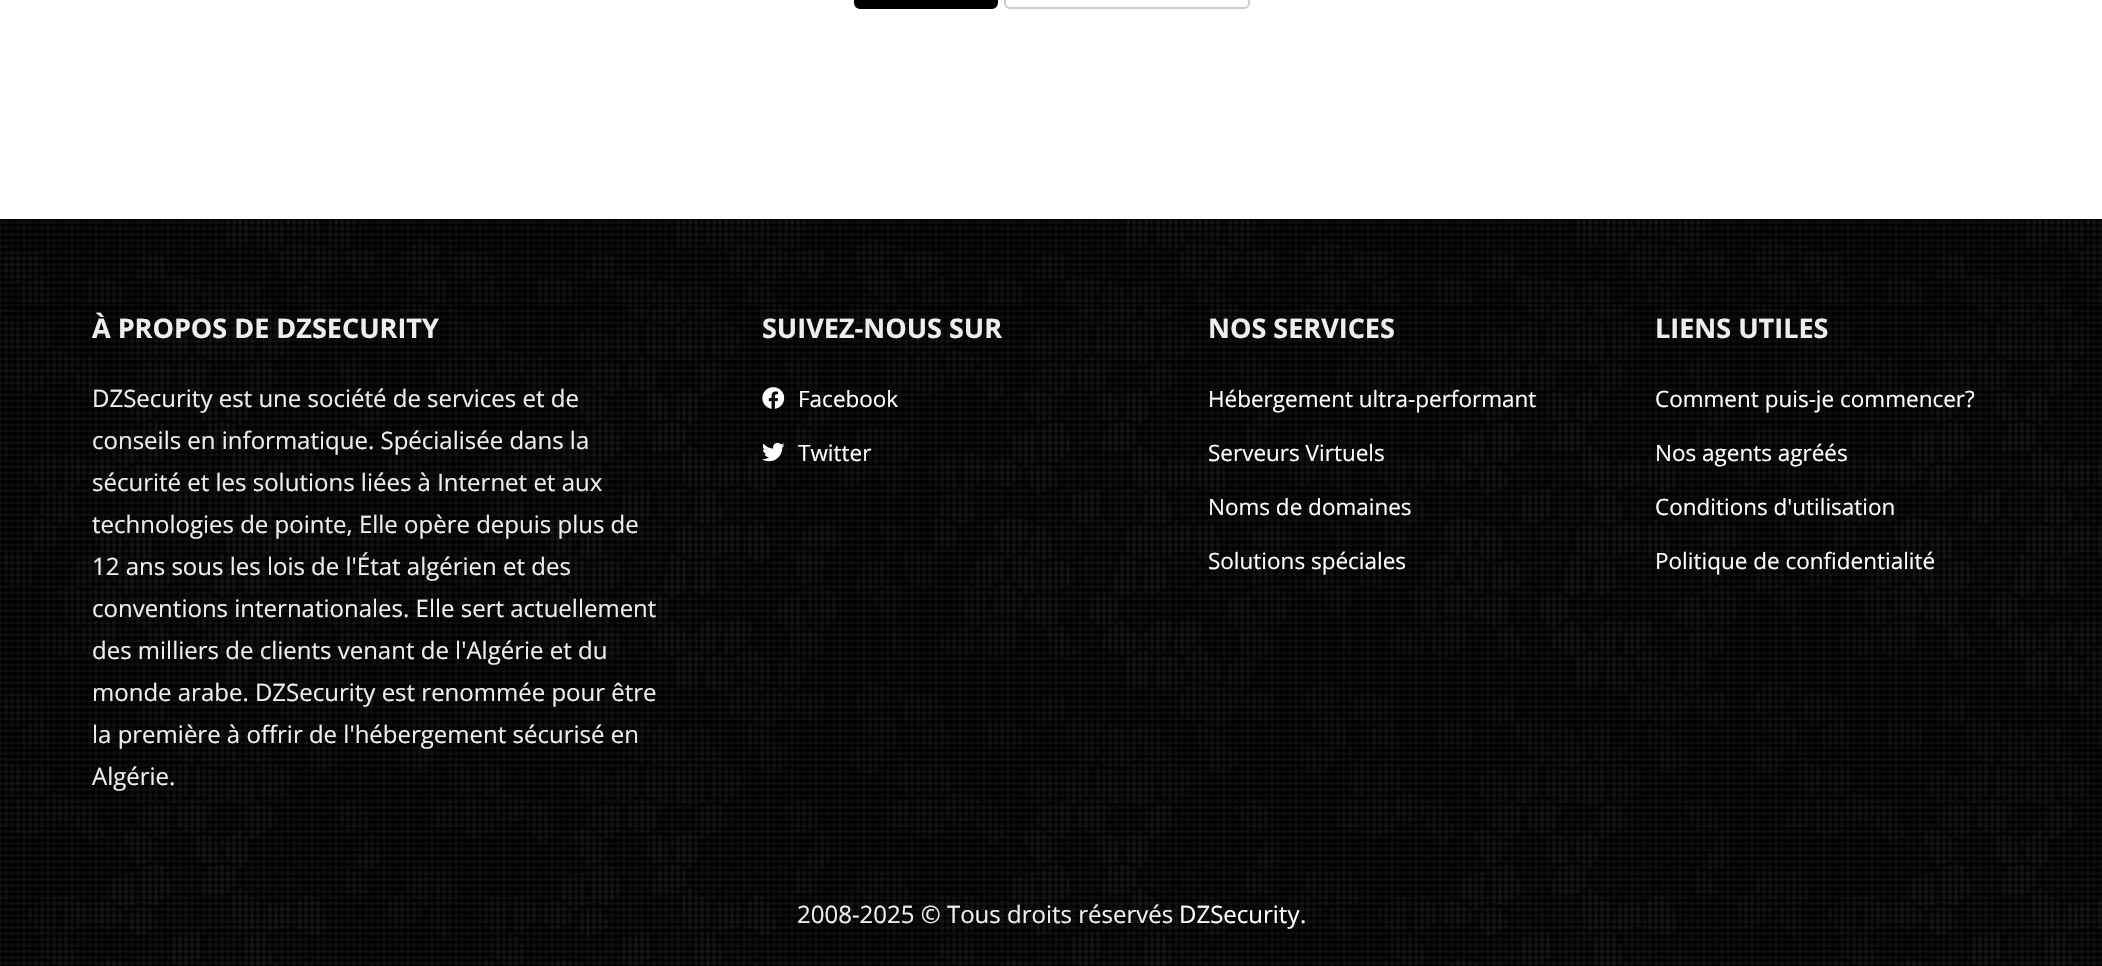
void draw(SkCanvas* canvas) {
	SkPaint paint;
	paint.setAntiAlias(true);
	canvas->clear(0xffffffff);
	canvas->drawImageRect(SkImages::DeferredFromEncodedData(SkData::MakeFromFileName("img1.png")), SkRect::MakeXYWH(0, 219, 2102, 747), SkSamplingOptions());
	paint.setColor(0xff000000);
	canvas->drawRoundRect(SkRect::MakeXYWH(855, -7, 142, 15), 5, 5, paint);
	paint.setStroke(true);
	paint.setStrokeWidth(2);
	canvas->drawRoundRect(SkRect::MakeXYWH(855, -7, 142, 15), 5, 5, paint);
	paint.setColor(0xffcccccc);
	canvas->drawRoundRect(SkRect::MakeXYWH(1005, -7, 244, 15), 5, 5, paint);
	SkFont f1(fontMgr->matchFamilyStyle("Open Sans", SkFontStyle::Bold()), 27);
	f1.setSubpixel(true);
	paint.setStroke(false);
	paint.setColor(0xffeeeeee);
	canvas->drawString("À PROPOS DE DZSECURITY", 92, 338, f1, paint);
	SkFont f2(fontMgr->matchFamilyStyle("Open Sans", SkFontStyle::Normal()), 24);
	f2.setSubpixel(true);
	canvas->drawString("DZSecurity est une société de services et de", 92, 407, f2, paint);
	canvas->drawString("conseils en informatique. Spécialisée dans la", 92, 449, f2, paint);
	canvas->drawString("sécurité et les solutions liées à Internet et aux", 92, 491, f2, paint);
	canvas->drawString("technologies de pointe, Elle opère depuis plus de", 92, 533, f2, paint);
	canvas->drawString("12 ans sous les lois de l'État algérien et des", 92, 575, f2, paint);
	canvas->drawString("conventions internationales. Elle sert actuellement", 92, 617, f2, paint);
	canvas->drawString("des milliers de clients venant de l'Algérie et du", 92, 659, f2, paint);
	canvas->drawString("monde arabe. DZSecurity est renommée pour être", 92, 701, f2, paint);
	canvas->drawString("la première à offrir de l'hébergement sécurisé en", 92, 743, f2, paint);
	canvas->drawString("Algérie.", 92, 785, f2, paint);
	canvas->drawString("SUIVEZ-NOUS SUR", 762, 338, f1, paint);
	canvas->drawImageRect(SkImages::DeferredFromEncodedData(SkData::MakeFromFileName("img2.png")), SkRect::MakeXYWH(762, 387, 23, 22), SkSamplingOptions());
	SkFont f3(fontMgr->matchFamilyStyle("Open Sans", SkFontStyle::Normal()), 22.5);
	f3.setSubpixel(true);
	paint.setColor(0xffffffff);
	canvas->drawString("Facebook", 798, 407, f3, paint);
	canvas->drawImageRect(SkImages::DeferredFromEncodedData(SkData::MakeFromFileName("img3.png")), SkRect::MakeXYWH(762, 442, 23, 20), SkSamplingOptions());
	canvas->drawString("Twitter", 798, 461, f3, paint);
	paint.setColor(0xffeeeeee);
	canvas->drawString("NOS SERVICES", 1208, 338, f1, paint);
	paint.setColor(0xffffffff);
	canvas->drawString("Hébergement ultra-performant", 1208, 407, f3, paint);
	canvas->drawString("Serveurs Virtuels", 1208, 461, f3, paint);
	canvas->drawString("Noms de domaines", 1208, 515, f3, paint);
	canvas->drawString("Solutions spéciales", 1208, 569, f3, paint);
	paint.setColor(0xffeeeeee);
	canvas->drawString("LIENS UTILES", 1655, 338, f1, paint);
	paint.setColor(0xffffffff);
	canvas->drawString("Comment puis-je commencer?", 1655, 407, f3, paint);
	canvas->drawString("Nos agents agréés", 1655, 461, f3, paint);
	canvas->drawString("Conditions d'utilisation", 1655, 515, f3, paint);
	canvas->drawString("Politique de confidentialité", 1655, 569, f3, paint);
	paint.setColor(0xffeeeeee);
	canvas->drawString("2008-2025 © Tous droits réservés", 797, 923, f2, paint);
	paint.setColor(0xffffffff);
	canvas->drawString("DZSecurity", 1179, 923, f2, paint);
	paint.setColor(0xffeeeeee);
	canvas->drawString(".", 1300, 923, f2, paint);
}
